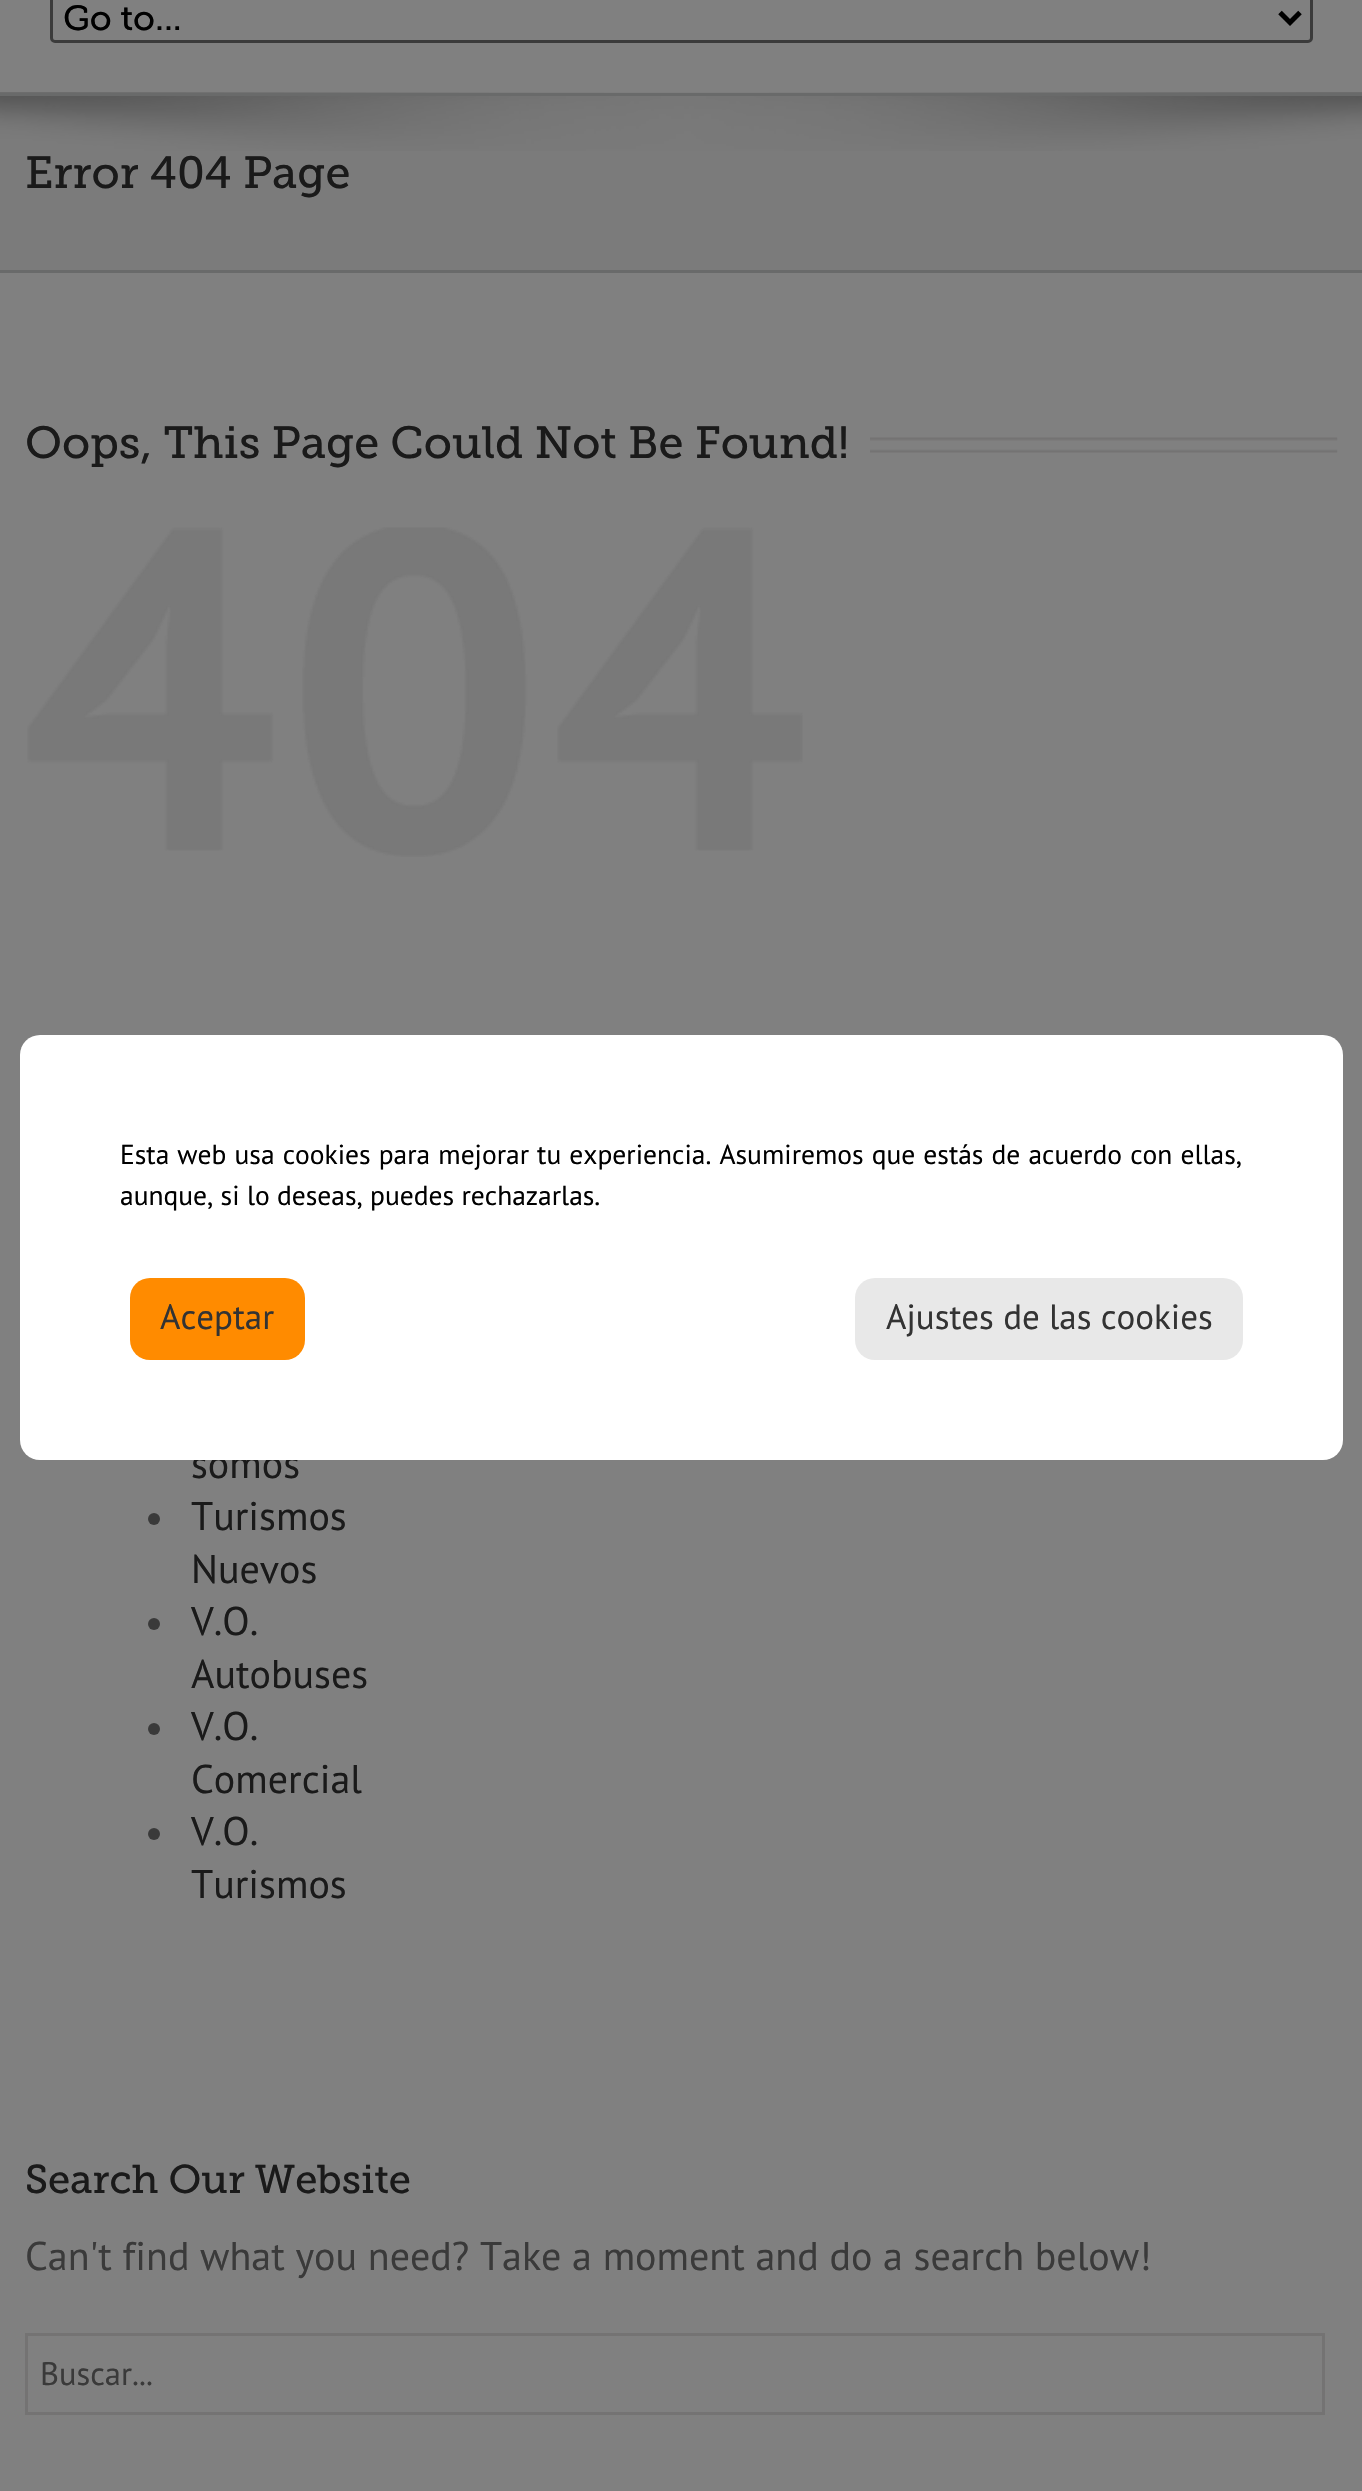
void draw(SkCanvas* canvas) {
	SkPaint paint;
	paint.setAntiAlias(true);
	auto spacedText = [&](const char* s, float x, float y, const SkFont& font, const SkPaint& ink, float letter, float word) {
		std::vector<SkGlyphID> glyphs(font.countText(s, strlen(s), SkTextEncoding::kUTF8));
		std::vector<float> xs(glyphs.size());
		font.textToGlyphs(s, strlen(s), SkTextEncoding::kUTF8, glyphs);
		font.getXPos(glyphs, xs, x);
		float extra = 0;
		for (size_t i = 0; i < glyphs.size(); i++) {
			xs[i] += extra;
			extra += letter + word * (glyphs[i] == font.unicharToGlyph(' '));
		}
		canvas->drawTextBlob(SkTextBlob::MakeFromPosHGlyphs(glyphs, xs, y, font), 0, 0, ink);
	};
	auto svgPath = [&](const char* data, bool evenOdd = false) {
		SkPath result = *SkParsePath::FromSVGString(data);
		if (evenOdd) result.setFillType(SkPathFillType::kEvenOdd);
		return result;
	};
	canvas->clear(0xff808080);
	paint.setStroke(true);
	paint.setStrokeWidth(3);
	paint.setColor(0xff3b3b3b);
	canvas->drawRoundRect(SkRect::MakeXYWH(51.5, -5.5, 1260, 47), 3.5, 3.5, paint);
	paint.setStrokeWidth(5);
	paint.setColor(0xff000000);
	canvas->drawPath(svgPath("M1280 12.5L1290 22.5L1300 12.5"), paint);
	SkFont f1(fontMgr->matchFamilyStyle("Museo Slab", SkFontStyle::Normal()), 35);
	f1.setSubpixel(true);
	paint.setStroke(false);
	canvas->drawString("Go to...", 63, 30, f1, paint);
	paint.setColor(0xff7b7b7b);
	canvas->drawRect(SkRect::MakeXYWH(0, 96, 1362, 174), paint);
	canvas->drawImageRect(SkImages::DeferredFromEncodedData(SkData::MakeFromFileName("img1.png")), SkRect::MakeXYWH(0, 92, 1362, 59), SkSamplingOptions());
	paint.setColor(0xff696a6a);
	canvas->drawRect(SkRect::MakeXYWH(0, 93, 1362, 3), paint);
	canvas->drawRect(SkRect::MakeXYWH(0, 270, 1362, 3), paint);
	SkFont f2(fontMgr->matchFamilyStyle("Museo Slab", SkFontStyle::Normal()), 45);
	f2.setSubpixel(true);
	paint.setColor(0xff1a1a1a);
	canvas->drawString("Error 404 Page", 25, 188, f2, paint);
	canvas->drawImageRect(SkImages::DeferredFromEncodedData(SkData::MakeFromFileName("img2.png")), SkRect::MakeXYWH(870, 437, 468, 16), SkSamplingOptions());
	canvas->drawString("Oops, This Page Could Not Be Found!", 25, 458, f2, paint);
	canvas->drawImageRect(SkImages::DeferredFromEncodedData(SkData::MakeFromFileName("img3.png")), SkRect::MakeXYWH(27, 527, 776, 330), SkSamplingOptions());
	SkFont f3(fontMgr->matchFamilyStyle("PT Sans", SkFontStyle::Normal()), 40);
	f3.setSubpixel(true);
	canvas->drawString("somos", 191, 1478, f3, paint);
	paint.setColor(0xff3a3a3a);
	canvas->drawCircle(154, 1519, 6, paint);
	paint.setColor(0xff1a1a1a);
	canvas->drawString("Turismos", 191, 1530, f3, paint);
	canvas->drawString("Nuevos", 191, 1583, f3, paint);
	paint.setColor(0xff3a3a3a);
	canvas->drawCircle(154, 1624, 6, paint);
	paint.setColor(0xff1a1a1a);
	canvas->drawString("V.O.", 191, 1635, f3, paint);
	canvas->drawString("Autobuses", 191, 1688, f3, paint);
	paint.setColor(0xff3a3a3a);
	canvas->drawCircle(154, 1729, 6, paint);
	paint.setColor(0xff1a1a1a);
	canvas->drawString("V.O.", 191, 1740, f3, paint);
	canvas->drawString("Comercial", 191, 1793, f3, paint);
	paint.setColor(0xff3a3a3a);
	canvas->drawCircle(154, 1834, 6, paint);
	paint.setColor(0xff1a1a1a);
	canvas->drawString("V.O.", 191, 1845, f3, paint);
	canvas->drawString("Turismos", 191, 1898, f3, paint);
	SkFont f4(fontMgr->matchFamilyStyle("Museo Slab", SkFontStyle::Normal()), 40);
	f4.setSubpixel(true);
	canvas->drawString("Search Our Website", 25, 2193, f4, paint);
	paint.setColor(0xff3a3a3a);
	canvas->drawString("Can't find what you need? Take a moment and do a search below!", 25, 2270, f3, paint);
	paint.setStroke(true);
	paint.setStrokeWidth(3);
	paint.setColor(0xff747373);
	canvas->drawRect(SkRect::MakeXYWH(26.5, 2334.5, 1297, 79), paint);
	SkFont f5(fontMgr->matchFamilyStyle("PT Sans", SkFontStyle::Normal()), 32.5);
	f5.setSubpixel(true);
	paint.setStroke(false);
	paint.setColor(0xff3a3a3a);
	canvas->drawString("Buscar...", 40, 2385, f5, paint);
	paint.setColor(0xffffffff);
	canvas->drawRoundRect(SkRect::MakeXYWH(20, 1035, 1323, 425), 20, 20, paint);
	SkFont f6(fontMgr->matchFamilyStyle("PT Sans", SkFontStyle::Normal()), 27.5);
	f6.setSubpixel(true);
	paint.setColor(0xff000000);
	spacedText("Esta web usa cookies para mejorar tu experiencia. Asumiremos que estás de acuerdo con ellas,", 120, 1164, f6, paint, 0, 0.75);
	canvas->drawString("aunque, si lo deseas, puedes rechazarlas.", 120, 1205, f6, paint);
	paint.setColor(0xffff8b00);
	canvas->drawRoundRect(SkRect::MakeXYWH(130, 1278, 175, 82), 20, 20, paint);
	SkFont f7(fontMgr->matchFamilyStyle("PT Sans", SkFontStyle::Normal()), 35);
	f7.setSubpixel(true);
	paint.setColor(0xff333333);
	canvas->drawString("Aceptar", 160, 1329, f7, paint);
	paint.setColor(0xffe8e8e8);
	canvas->drawRoundRect(SkRect::MakeXYWH(855, 1278, 388, 82), 20, 20, paint);
	paint.setColor(0xff333333);
	canvas->drawString("Ajustes de las cookies", 886, 1329, f7, paint);
}
